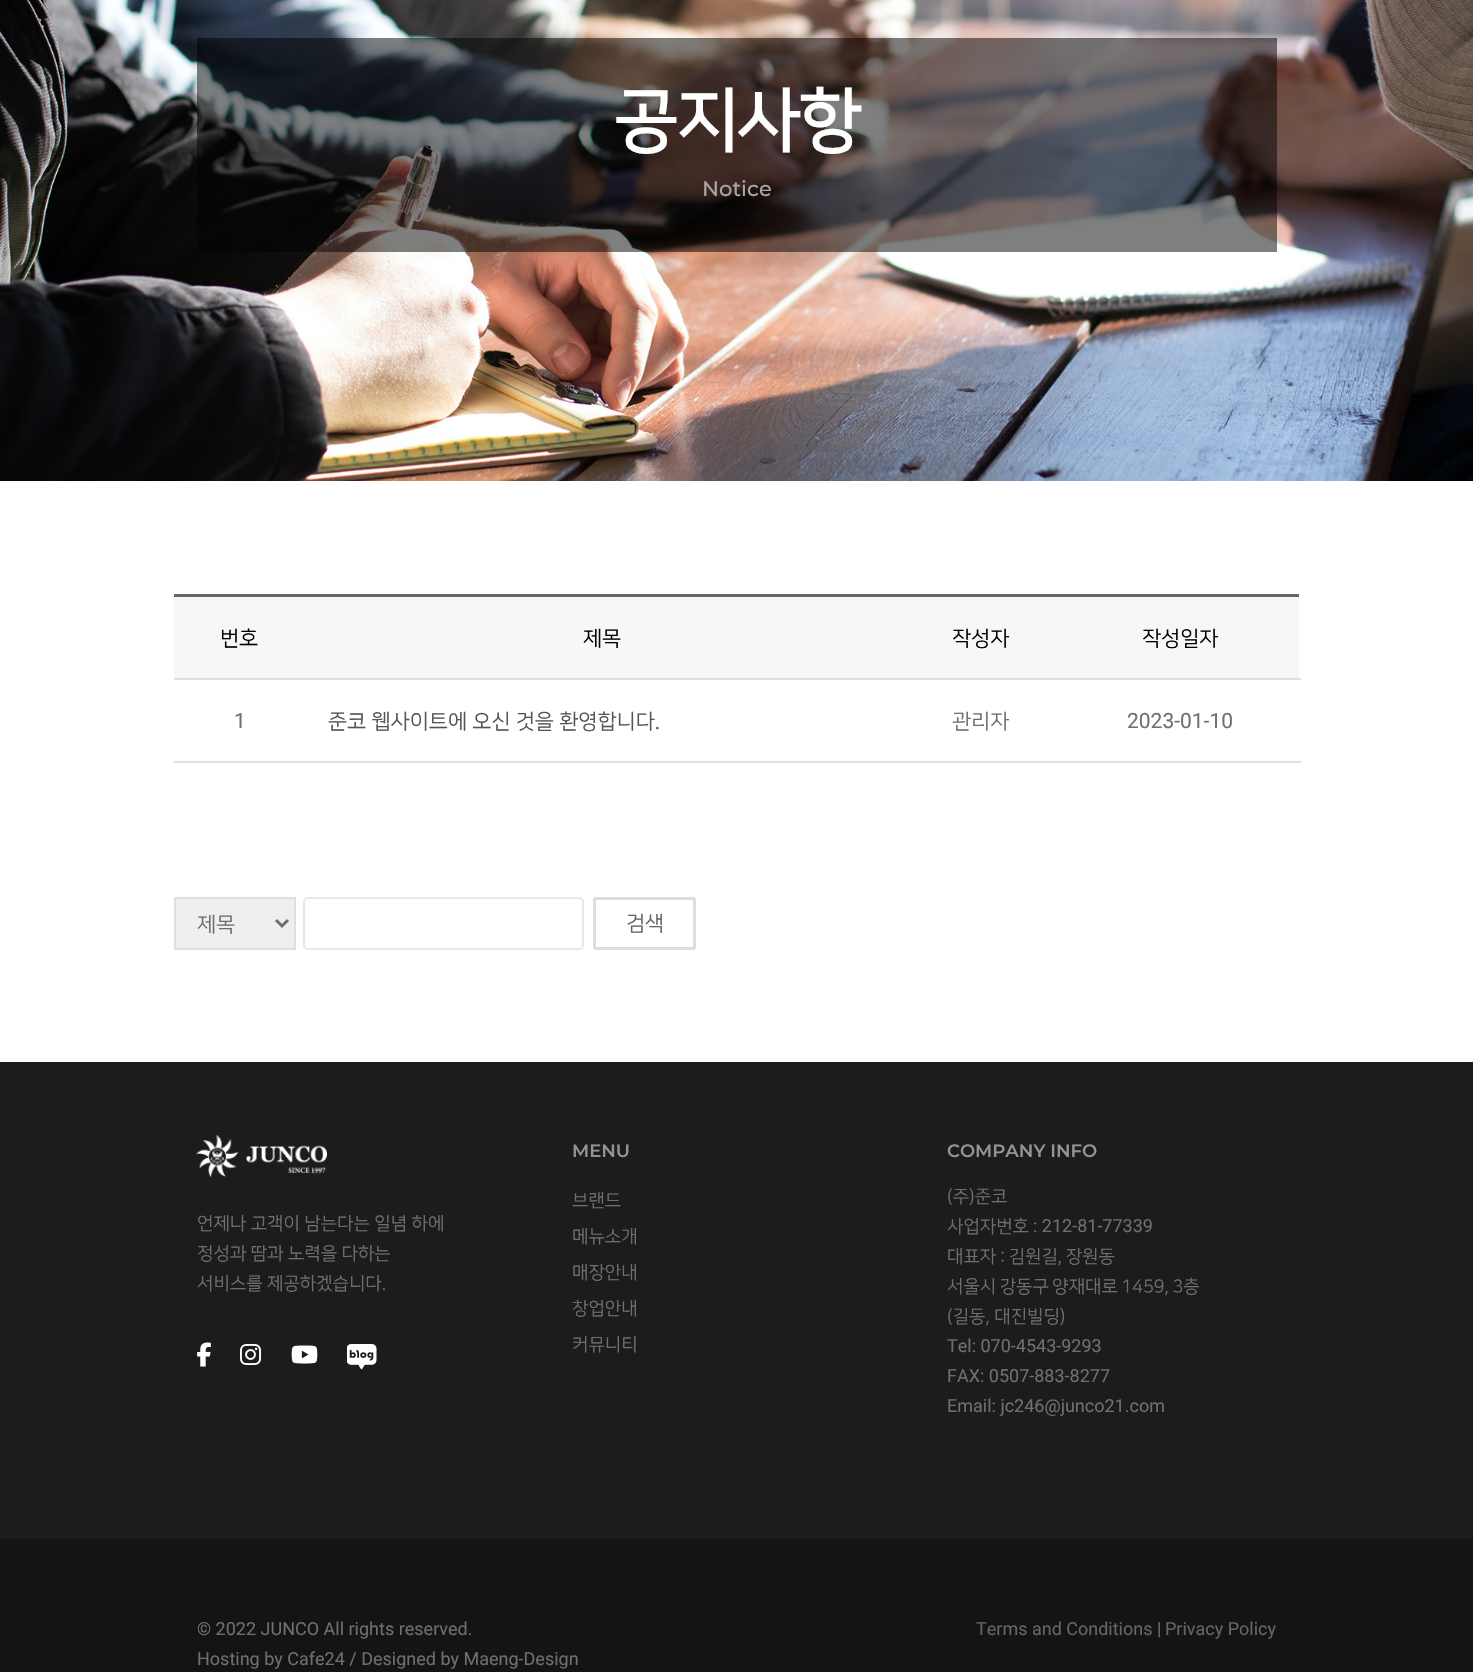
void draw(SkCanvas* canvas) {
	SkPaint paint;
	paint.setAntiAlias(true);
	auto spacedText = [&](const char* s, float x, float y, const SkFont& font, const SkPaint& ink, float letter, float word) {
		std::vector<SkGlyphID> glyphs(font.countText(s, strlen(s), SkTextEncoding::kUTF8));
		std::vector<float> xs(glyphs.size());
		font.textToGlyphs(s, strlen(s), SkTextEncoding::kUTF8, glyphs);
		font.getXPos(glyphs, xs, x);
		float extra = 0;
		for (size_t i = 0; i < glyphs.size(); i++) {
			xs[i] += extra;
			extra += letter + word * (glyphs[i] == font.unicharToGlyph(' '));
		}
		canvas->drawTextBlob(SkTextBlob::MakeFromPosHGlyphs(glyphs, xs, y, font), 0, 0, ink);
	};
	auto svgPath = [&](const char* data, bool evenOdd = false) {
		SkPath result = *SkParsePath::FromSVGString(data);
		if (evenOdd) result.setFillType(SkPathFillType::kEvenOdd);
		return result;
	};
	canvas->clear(0xffffffff);
	canvas->drawImageRect(SkImages::DeferredFromEncodedData(SkData::MakeFromFileName("img1.png")), SkRect::MakeXYWH(0, 0, 1473, 481), SkSamplingOptions());
	paint.setColor(0x80000000);
	canvas->drawRect(SkRect::MakeXYWH(197, 38, 1080, 214), paint);
	SkFont f1(fontMgr->matchFamilyStyle("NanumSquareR", SkFontStyle::Bold()), 69);
	f1.setSubpixel(true);
	paint.setColor(0xffffffff);
	spacedText("공지사항", 614, 143, f1, paint, -1.5, 0);
	SkFont f2(fontMgr->matchFamilyStyle("Montserrat", SkFontStyle(500, SkFontStyle::kNormal_Width, SkFontStyle::kUpright_Slant)), 21);
	f2.setSubpixel(true);
	paint.setColor(0xffaaa4a3);
	canvas->drawString("Notice", 702, 196, f2, paint);
	paint.setColor(0xff666666);
	canvas->drawRect(SkRect::MakeXYWH(174, 594, 1125, 3), paint);
	paint.setColor(0xfff7f7f7);
	canvas->drawRect(SkRect::MakeXYWH(174, 597, 1125, 81), paint);
	SkFont f3(fontMgr->matchFamilyStyle("NanumSquareR", SkFontStyle::Normal()), 21);
	f3.setSubpixel(true);
	paint.setColor(0xff000000);
	canvas->drawString("번호", 220, 645, f3, paint);
	canvas->drawString("제목", 583, 645, f3, paint);
	canvas->drawString("작성자", 952, 645, f3, paint);
	paint.setColor(0xffe0e0e0);
	canvas->drawRect(SkRect::MakeXYWH(174, 678, 1127, 2), paint);
	paint.setColor(0xff000000);
	canvas->drawString("작성일자", 1142, 645, f3, paint);
	SkFont f4(fontMgr->matchFamilyStyle("Roboto", SkFontStyle::Normal()), 21);
	f4.setSubpixel(true);
	paint.setColor(0xff6f6f6f);
	canvas->drawString("1", 234, 728, f4, paint);
	paint.setColor(0xff555555);
	canvas->drawString("준코 웹사이트에 오신 것을 환영합니다.", 328, 728, f3, paint);
	paint.setColor(0xff6f6f6f);
	canvas->drawString("관리자", 952, 728, f3, paint);
	paint.setColor(0xffe0e0e0);
	canvas->drawRect(SkRect::MakeXYWH(174, 761, 1127, 2), paint);
	paint.setColor(0xff6f6f6f);
	canvas->drawString("2023-01-10", 1127, 728, f4, paint);
	paint.setColor(0xffefefef);
	canvas->drawRect(SkRect::MakeXYWH(175, 898, 120, 51), paint);
	paint.setStroke(true);
	paint.setStrokeWidth(2);
	paint.setColor(0xffe0e0e0);
	canvas->drawRect(SkRect::MakeXYWH(175, 898, 120, 51), paint);
	paint.setStrokeWidth(3);
	paint.setColor(0xff6f6f6f);
	canvas->drawPath(svgPath("M276 920L282 926L288 920"), paint);
	paint.setStroke(false);
	canvas->drawString("제목", 197, 931, f3, paint);
	paint.setStroke(true);
	paint.setStrokeWidth(2);
	paint.setColor(0xffe8e8e8);
	canvas->drawRoundRect(SkRect::MakeXYWH(304, 898, 279, 51), 4, 4, paint);
	paint.setStrokeWidth(3);
	paint.setColor(0xffdddddd);
	canvas->drawRoundRect(SkRect::MakeXYWH(594.5, 898.5, 100, 50), 1.5, 1.5, paint);
	paint.setStroke(false);
	paint.setColor(0xff666666);
	canvas->drawString("검색", 626, 930, f3, paint);
	paint.setColor(0xff1c1c1c);
	canvas->drawRect(SkRect::MakeXYWH(0, 1062, 1473, 477), paint);
	canvas->drawImageRect(SkImages::DeferredFromEncodedData(SkData::MakeFromFileName("img2.png")), SkRect::MakeXYWH(196, 1135, 131, 42), SkSamplingOptions());
	SkFont f5(fontMgr->matchFamilyStyle("NanumSquareR", SkFontStyle::Normal()), 18);
	f5.setSubpixel(true);
	paint.setColor(0xff6f6f6f);
	canvas->drawString("언제나 고객이 남는다는 일념 하에", 197, 1229, f5, paint);
	canvas->drawString("정성과 땀과 노력을 다하는", 197, 1259, f5, paint);
	canvas->drawString("서비스를 제공하겠습니다.", 197, 1289, f5, paint);
	canvas->drawImageRect(SkImages::DeferredFromEncodedData(SkData::MakeFromFileName("img3.png")), SkRect::MakeXYWH(197, 1342, 14, 25), SkSamplingOptions());
	canvas->drawImageRect(SkImages::DeferredFromEncodedData(SkData::MakeFromFileName("img4.png")), SkRect::MakeXYWH(240, 1344, 21, 21), SkSamplingOptions());
	canvas->drawImageRect(SkImages::DeferredFromEncodedData(SkData::MakeFromFileName("img5.png")), SkRect::MakeXYWH(291, 1345, 27, 19), SkSamplingOptions());
	canvas->drawImageRect(SkImages::DeferredFromEncodedData(SkData::MakeFromFileName("img6.png")), SkRect::MakeXYWH(347, 1344, 30, 26), SkSamplingOptions());
	SkFont f6(fontMgr->matchFamilyStyle("Montserrat", SkFontStyle(600, SkFontStyle::kNormal_Width, SkFontStyle::kUpright_Slant)), 18);
	f6.setSubpixel(true);
	paint.setColor(0xff939393);
	canvas->drawString("MENU", 572, 1157, f6, paint);
	paint.setColor(0xff6f6f6f);
	canvas->drawString("브랜드", 572, 1206, f5, paint);
	canvas->drawString("메뉴소개", 572, 1242, f5, paint);
	canvas->drawString("매장안내", 572, 1278, f5, paint);
	canvas->drawString("창업안내", 572, 1314, f5, paint);
	canvas->drawString("커뮤니티", 572, 1350, f5, paint);
	paint.setColor(0xff939393);
	canvas->drawString("COMPANY INFO", 947, 1157, f6, paint);
	paint.setColor(0xff6f6f6f);
	canvas->drawString("(주)준코", 947, 1202, f5, paint);
	canvas->drawString("사업자번호", 947, 1232, f5, paint);
	SkFont f7(fontMgr->matchFamilyStyle("Roboto", SkFontStyle::Normal()), 18);
	f7.setSubpixel(true);
	canvas->drawString(": 212-81-77339", 1033, 1232, f7, paint);
	spacedText("대표자 : 김원길, 장원동", 947, 1262, f5, paint, 0, -1);
	spacedText("서울시 강동구 양재대로 1459, 3층", 947, 1292, f5, paint, 0, -1);
	canvas->drawString("(길동, 대진빌딩)", 947, 1322, f5, paint);
	canvas->drawString("Tel: 070-4543-9293", 947, 1352, f7, paint);
	canvas->drawString("FAX: 0507-883-8277", 947, 1382, f7, paint);
	canvas->drawString("Email: jc246@junco21.com", 947, 1412, f7, paint);
	paint.setColor(0xff141414);
	canvas->drawRect(SkRect::MakeXYWH(0, 1539, 1473, 133), paint);
	paint.setColor(0xff6f6f6f);
	canvas->drawString("© 2022 JUNCO All rights reserved.", 197, 1635, f7, paint);
	canvas->drawString("Hosting by Cafe24 / Designed by Maeng-Design", 197, 1665, f7, paint);
	paint.setColor(0xff666666);
	canvas->drawString("Terms and Conditions", 976, 1635, f7, paint);
	paint.setColor(0xff6f6f6f);
	canvas->drawString("|", 1157, 1635, f7, paint);
	paint.setColor(0xff666666);
	canvas->drawString("Privacy Policy", 1165, 1635, f7, paint);
}
